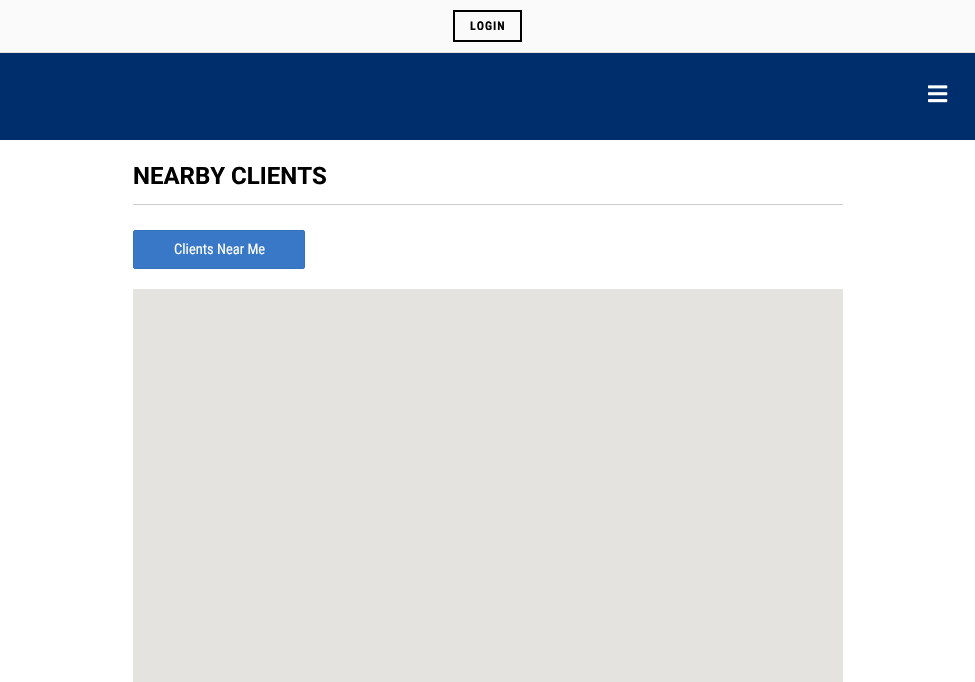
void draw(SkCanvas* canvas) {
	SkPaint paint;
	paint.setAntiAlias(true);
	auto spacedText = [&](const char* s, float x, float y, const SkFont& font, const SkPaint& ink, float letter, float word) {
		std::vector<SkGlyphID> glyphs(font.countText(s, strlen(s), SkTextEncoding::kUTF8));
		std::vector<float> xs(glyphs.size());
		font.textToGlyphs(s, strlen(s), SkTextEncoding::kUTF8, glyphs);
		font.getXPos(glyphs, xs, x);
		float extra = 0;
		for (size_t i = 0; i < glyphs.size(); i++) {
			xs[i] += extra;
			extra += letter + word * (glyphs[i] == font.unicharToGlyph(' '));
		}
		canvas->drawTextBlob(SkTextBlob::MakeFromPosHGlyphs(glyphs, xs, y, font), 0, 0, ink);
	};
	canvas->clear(0xfffafafa);
	paint.setColor(0xffe1e1e1);
	canvas->drawRect(SkRect::MakeXYWH(0, 52, 975, 1), paint);
	paint.setStroke(true);
	paint.setStrokeWidth(2);
	paint.setColor(0xff000000);
	canvas->drawRect(SkRect::MakeXYWH(454, 11, 67, 30), paint);
	SkFont f1(fontMgr->matchFamilyStyle("Roboto Condensed", SkFontStyle::Bold()), 12);
	f1.setSubpixel(true);
	paint.setStroke(false);
	spacedText("LOGIN", 470, 30, f1, paint, 1, 0);
	paint.setColor(0xff002e6c);
	canvas->drawRect(SkRect::MakeXYWH(0, 53, 975, 87), paint);
	canvas->drawImageRect(SkImages::DeferredFromEncodedData(SkData::MakeFromFileName("img1.png")), SkRect::MakeXYWH(928, 85, 20, 18), SkSamplingOptions());
	paint.setColor(0xffffffff);
	canvas->drawRect(SkRect::MakeXYWH(0, 140, 975, 542), paint);
	paint.setColor(0xffcccccc);
	canvas->drawRect(SkRect::MakeXYWH(133, 204, 710, 1), paint);
	SkFont f2(fontMgr->matchFamilyStyle("Roboto", SkFontStyle::Bold()), 24);
	f2.setSubpixel(true);
	paint.setColor(0xff000000);
	canvas->drawString("NEARBY CLIENTS", 133, 184, f2, paint);
	paint.setColor(0xff3878c7);
	canvas->drawRoundRect(SkRect::MakeXYWH(133.5, 230.5, 171, 38), 1.5, 1.5, paint);
	paint.setStroke(true);
	paint.setStrokeWidth(1);
	paint.setColor(0xff3672bb);
	canvas->drawRoundRect(SkRect::MakeXYWH(133.5, 230.5, 171, 38), 1.5, 1.5, paint);
	SkFont f3(fontMgr->matchFamilyStyle("Roboto Condensed", SkFontStyle::Normal()), 14.5);
	f3.setSubpixel(true);
	paint.setStroke(false);
	paint.setColor(0xffffffff);
	canvas->drawString("Clients Near Me", 174, 254, f3, paint);
	paint.setColor(0xffe5e3df);
	canvas->drawRect(SkRect::MakeXYWH(133, 289, 710, 393), paint);
}
